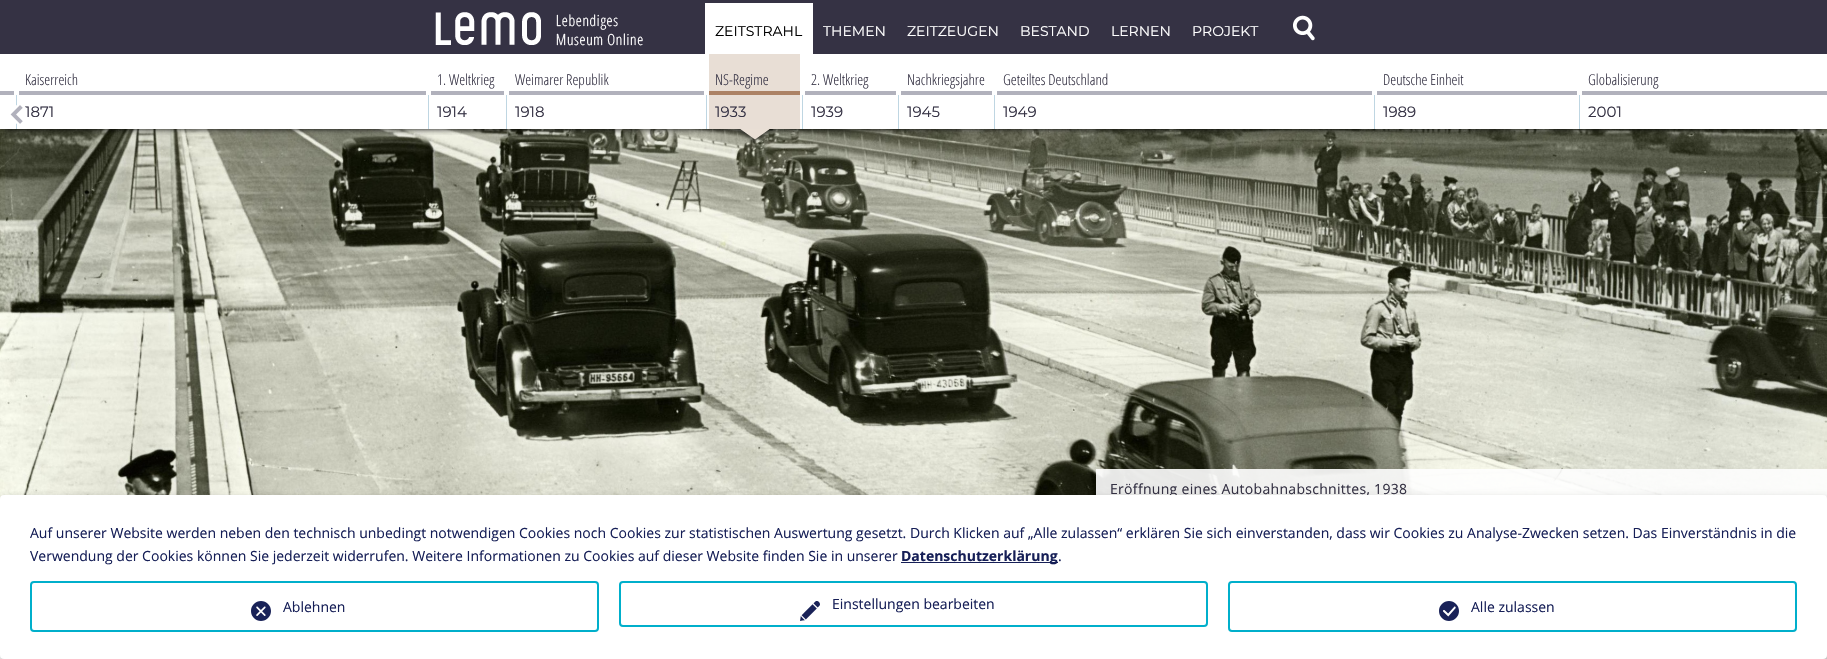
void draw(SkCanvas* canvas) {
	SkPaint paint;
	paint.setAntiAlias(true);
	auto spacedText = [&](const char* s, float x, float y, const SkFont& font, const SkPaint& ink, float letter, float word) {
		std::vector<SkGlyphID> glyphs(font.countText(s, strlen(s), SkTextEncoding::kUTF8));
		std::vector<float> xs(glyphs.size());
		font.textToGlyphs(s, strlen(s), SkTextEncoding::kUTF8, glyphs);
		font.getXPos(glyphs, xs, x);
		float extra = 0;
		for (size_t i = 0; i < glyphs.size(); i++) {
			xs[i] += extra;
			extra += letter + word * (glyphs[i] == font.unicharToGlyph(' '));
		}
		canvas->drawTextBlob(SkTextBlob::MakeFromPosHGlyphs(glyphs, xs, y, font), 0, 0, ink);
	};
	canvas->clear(0xffffffff);
	paint.setColor(0xff353244);
	canvas->drawRect(SkRect::MakeXYWH(0, 0, 1827, 54), paint);
	canvas->drawImageRect(SkImages::DeferredFromEncodedData(SkData::MakeFromFileName("img1.png")), SkRect::MakeXYWH(435, 12, 208, 34), SkSamplingOptions());
	paint.setColor(0xffffffff);
	canvas->drawRect(SkRect::MakeXYWH(705, 3, 108, 51), paint);
	SkFont f1(fontMgr->matchFamilyStyle("Montserrat", SkFontStyle::Normal()), 14);
	f1.setSubpixel(true);
	paint.setColor(0xff000000);
	canvas->drawString("ZEITSTRAHL", 715, 36, f1, paint);
	paint.setColor(0xffffffff);
	canvas->drawString("THEMEN", 823, 36, f1, paint);
	canvas->drawString("ZEITZEUGEN", 907, 36, f1, paint);
	canvas->drawString("BESTAND", 1020, 36, f1, paint);
	canvas->drawString("LERNEN", 1111, 36, f1, paint);
	canvas->drawString("PROJEKT", 1192, 36, f1, paint);
	canvas->drawImageRect(SkImages::DeferredFromEncodedData(SkData::MakeFromFileName("img2.png")), SkRect::MakeXYWH(1293, 15, 22, 26), SkSamplingOptions());
	canvas->drawImageRect(SkImages::DeferredFromEncodedData(SkData::MakeFromFileName("img6.png")), SkRect::MakeXYWH(0, 129, 1827, 370), SkSamplingOptions());
	canvas->save();
	canvas->clipRect(SkRect::MakeXYWH(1, 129, 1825, 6));
	paint.setColor(0xff000000);
	paint.setMaskFilter(SkMaskFilter::MakeBlur(kNormal_SkBlurStyle, 3));
	canvas->drawRect(SkRect::MakeXYWH(6, 66, 1815, 63), paint);
	paint.setMaskFilter(nullptr);
	canvas->restore();
	paint.setColor(0xffbfd6e2);
	canvas->drawRect(SkRect::MakeXYWH(16, 95, 1, 34), paint);
	SkFont f2(fontMgr->matchFamilyStyle("Montserrat", SkFontStyle::Normal()), 15);
	f2.setSubpixel(true);
	paint.setColor(0xff353244);
	canvas->drawString("1871", 25, 117, f2, paint);
	canvas->drawImageRect(SkImages::DeferredFromEncodedData(SkData::MakeFromFileName("img3.png")), SkRect::MakeXYWH(10, 105, 16, 19), SkSamplingOptions());
	paint.setColor(0xffb1b1bc);
	canvas->drawRect(SkRect::MakeXYWH(0, 91, 14, 4), paint);
	canvas->drawRect(SkRect::MakeXYWH(19, 91, 407, 4), paint);
	SkFont f3(fontMgr->matchFamilyStyle("Open Sans", SkFontStyle(300, SkFontStyle::kNormal_Width, SkFontStyle::kUpright_Slant)), 15);
	f3.setSubpixel(true);
	paint.setColor(0xff353244);
	canvas->drawString("Kaiserreich", 25, 85, f3, paint);
	paint.setColor(0xffb1b1bc);
	canvas->drawRect(SkRect::MakeXYWH(431, 91, 73, 4), paint);
	paint.setColor(0xff353244);
	canvas->drawString("1. Weltkrieg", 437, 85, f3, paint);
	paint.setColor(0xffbfd6e2);
	canvas->drawRect(SkRect::MakeXYWH(428, 95, 1, 34), paint);
	paint.setColor(0xff353244);
	canvas->drawString("1914", 437, 117, f2, paint);
	paint.setColor(0xffb1b1bc);
	canvas->drawRect(SkRect::MakeXYWH(509, 91, 195, 4), paint);
	paint.setColor(0xff353244);
	canvas->drawString("Weimarer Republik", 515, 85, f3, paint);
	paint.setColor(0xffbfd6e2);
	canvas->drawRect(SkRect::MakeXYWH(506, 95, 1, 34), paint);
	paint.setColor(0xff353244);
	canvas->drawString("1918", 515, 117, f2, paint);
	paint.setColor(0xffe8ded5);
	canvas->drawRect(SkRect::MakeXYWH(709, 54, 91, 37), paint);
	paint.setColor(0xffac8265);
	canvas->drawRect(SkRect::MakeXYWH(709, 91, 91, 4), paint);
	paint.setColor(0xff353244);
	canvas->drawString("NS-Regime", 715, 85, f3, paint);
	paint.setColor(0xffe8ded5);
	canvas->drawRect(SkRect::MakeXYWH(709, 95, 91, 34), paint);
	canvas->drawImageRect(SkImages::DeferredFromEncodedData(SkData::MakeFromFileName("img4.png")), SkRect::MakeXYWH(704, 95, 5, 34), SkSamplingOptions());
	paint.setColor(0xff353244);
	canvas->drawString("1933", 715, 117, f2, paint);
	canvas->drawImageRect(SkImages::DeferredFromEncodedData(SkData::MakeFromFileName("img5.png")), SkRect::MakeXYWH(734, 129, 42, 14), SkSamplingOptions());
	paint.setColor(0xffb1b1bc);
	canvas->drawRect(SkRect::MakeXYWH(805, 91, 91, 4), paint);
	paint.setColor(0xff353244);
	canvas->drawString("2. Weltkrieg", 811, 85, f3, paint);
	paint.setColor(0xffbfd6e2);
	canvas->drawRect(SkRect::MakeXYWH(802, 95, 1, 34), paint);
	paint.setColor(0xff353244);
	canvas->drawString("1939", 811, 117, f2, paint);
	paint.setColor(0xffb1b1bc);
	canvas->drawRect(SkRect::MakeXYWH(901, 91, 91, 4), paint);
	paint.setColor(0xff353244);
	canvas->drawString("Nachkriegsjahre", 907, 85, f3, paint);
	paint.setColor(0xffbfd6e2);
	canvas->drawRect(SkRect::MakeXYWH(898, 95, 1, 34), paint);
	paint.setColor(0xff353244);
	canvas->drawString("1945", 907, 117, f2, paint);
	paint.setColor(0xffb1b1bc);
	canvas->drawRect(SkRect::MakeXYWH(997, 91, 375, 4), paint);
	paint.setColor(0xff353244);
	canvas->drawString("Geteiltes Deutschland", 1003, 85, f3, paint);
	paint.setColor(0xffbfd6e2);
	canvas->drawRect(SkRect::MakeXYWH(994, 95, 1, 34), paint);
	paint.setColor(0xff353244);
	canvas->drawString("1949", 1003, 117, f2, paint);
	paint.setColor(0xffb1b1bc);
	canvas->drawRect(SkRect::MakeXYWH(1377, 91, 200, 4), paint);
	paint.setColor(0xff353244);
	canvas->drawString("Deutsche Einheit", 1383, 85, f3, paint);
	paint.setColor(0xffbfd6e2);
	canvas->drawRect(SkRect::MakeXYWH(1374, 95, 1, 34), paint);
	paint.setColor(0xff353244);
	canvas->drawString("1989", 1383, 117, f2, paint);
	paint.setColor(0xffb1b1bc);
	canvas->drawRect(SkRect::MakeXYWH(1582, 91, 245, 4), paint);
	paint.setColor(0xff353244);
	canvas->drawString("Globalisierung", 1588, 85, f3, paint);
	paint.setColor(0xffbfd6e2);
	canvas->drawRect(SkRect::MakeXYWH(1579, 95, 1, 34), paint);
	paint.setColor(0xff353244);
	canvas->drawString("2001", 1588, 117, f2, paint);
	paint.setColor(0xe6fefefe);
	canvas->drawRect(SkRect::MakeXYWH(1096, 469, 731, 30), paint);
	SkFont f4(fontMgr->matchFamilyStyle("Open Sans", SkFontStyle::Normal()), 14);
	f4.setSubpixel(true);
	paint.setColor(0xff353244);
	spacedText("Eröffnung eines Autobahnabschnittes, 1938", 1110, 494, f4, paint, 0.3, 0);
	paint.setColor(0x30000000);
	paint.setMaskFilter(SkMaskFilter::MakeBlur(kNormal_SkBlurStyle, 5));
	canvas->drawRoundRect(SkRect::MakeXYWH(5, 500, 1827, 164), 4, 4, paint);
	paint.setMaskFilter(nullptr);
	paint.setColor(0x33000000);
	paint.setMaskFilter(SkMaskFilter::MakeBlur(kNormal_SkBlurStyle, 3));
	canvas->drawRoundRect(SkRect::MakeXYWH(0, 499, 1827, 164), 4, 4, paint);
	paint.setMaskFilter(nullptr);
	paint.setColor(0xffffffff);
	canvas->drawRoundRect(SkRect::MakeXYWH(0, 495, 1827, 164), 4, 4, paint);
	paint.setColor(0xff161f57);
	canvas->drawString("Auf unserer Website werden neben den technisch unbedingt notwendigen Cookies noch Cookies zur statistischen Auswertung gesetzt. Durch Klicken auf „Alle zulassen“ erklären Sie sich einverstanden, dass wir Cookies zu Analyse-Zwecken setzen. Das Einverständnis in die", 30, 538, f4, paint);
	canvas->drawString("Verwendung der Cookies können Sie jederzeit widerrufen. Weitere Informationen zu Cookies auf dieser Website finden Sie in unserer", 30, 561, f4, paint);
	canvas->drawRect(SkRect::MakeXYWH(901, 562, 157, 1), paint);
	SkFont f5(fontMgr->matchFamilyStyle("Open Sans", SkFontStyle::Bold()), 14);
	f5.setSubpixel(true);
	canvas->drawString("Datenschutzerklärung", 901, 561, f5, paint);
	canvas->drawString(".", 1058, 561, f4, paint);
	paint.setStroke(true);
	paint.setStrokeWidth(2);
	paint.setColor(0xff00afcb);
	canvas->drawRoundRect(SkRect::MakeXYWH(620, 582, 587, 44), 3, 3, paint);
	canvas->drawImageRect(SkImages::DeferredFromEncodedData(SkData::MakeFromFileName("img7.png")), SkRect::MakeXYWH(800, 601, 20, 20), SkSamplingOptions());
	paint.setStroke(false);
	paint.setColor(0xff161f57);
	canvas->drawString("Einstellungen bearbeiten", 832, 609, f4, paint);
	paint.setStroke(true);
	paint.setColor(0xff00afcb);
	canvas->drawRoundRect(SkRect::MakeXYWH(31, 582, 567, 49), 3, 3, paint);
	canvas->drawImageRect(SkImages::DeferredFromEncodedData(SkData::MakeFromFileName("img8.png")), SkRect::MakeXYWH(251, 601, 20, 20), SkSamplingOptions());
	paint.setStroke(false);
	paint.setColor(0xff161f57);
	canvas->drawString("Ablehnen", 283, 612, f4, paint);
	paint.setStroke(true);
	paint.setColor(0xff00afcb);
	canvas->drawRoundRect(SkRect::MakeXYWH(1229, 582, 567, 49), 3, 3, paint);
	canvas->drawImageRect(SkImages::DeferredFromEncodedData(SkData::MakeFromFileName("img9.png")), SkRect::MakeXYWH(1439, 601, 20, 20), SkSamplingOptions());
	paint.setStroke(false);
	paint.setColor(0xff161f57);
	canvas->drawString("Alle zulassen", 1471, 612, f4, paint);
}
